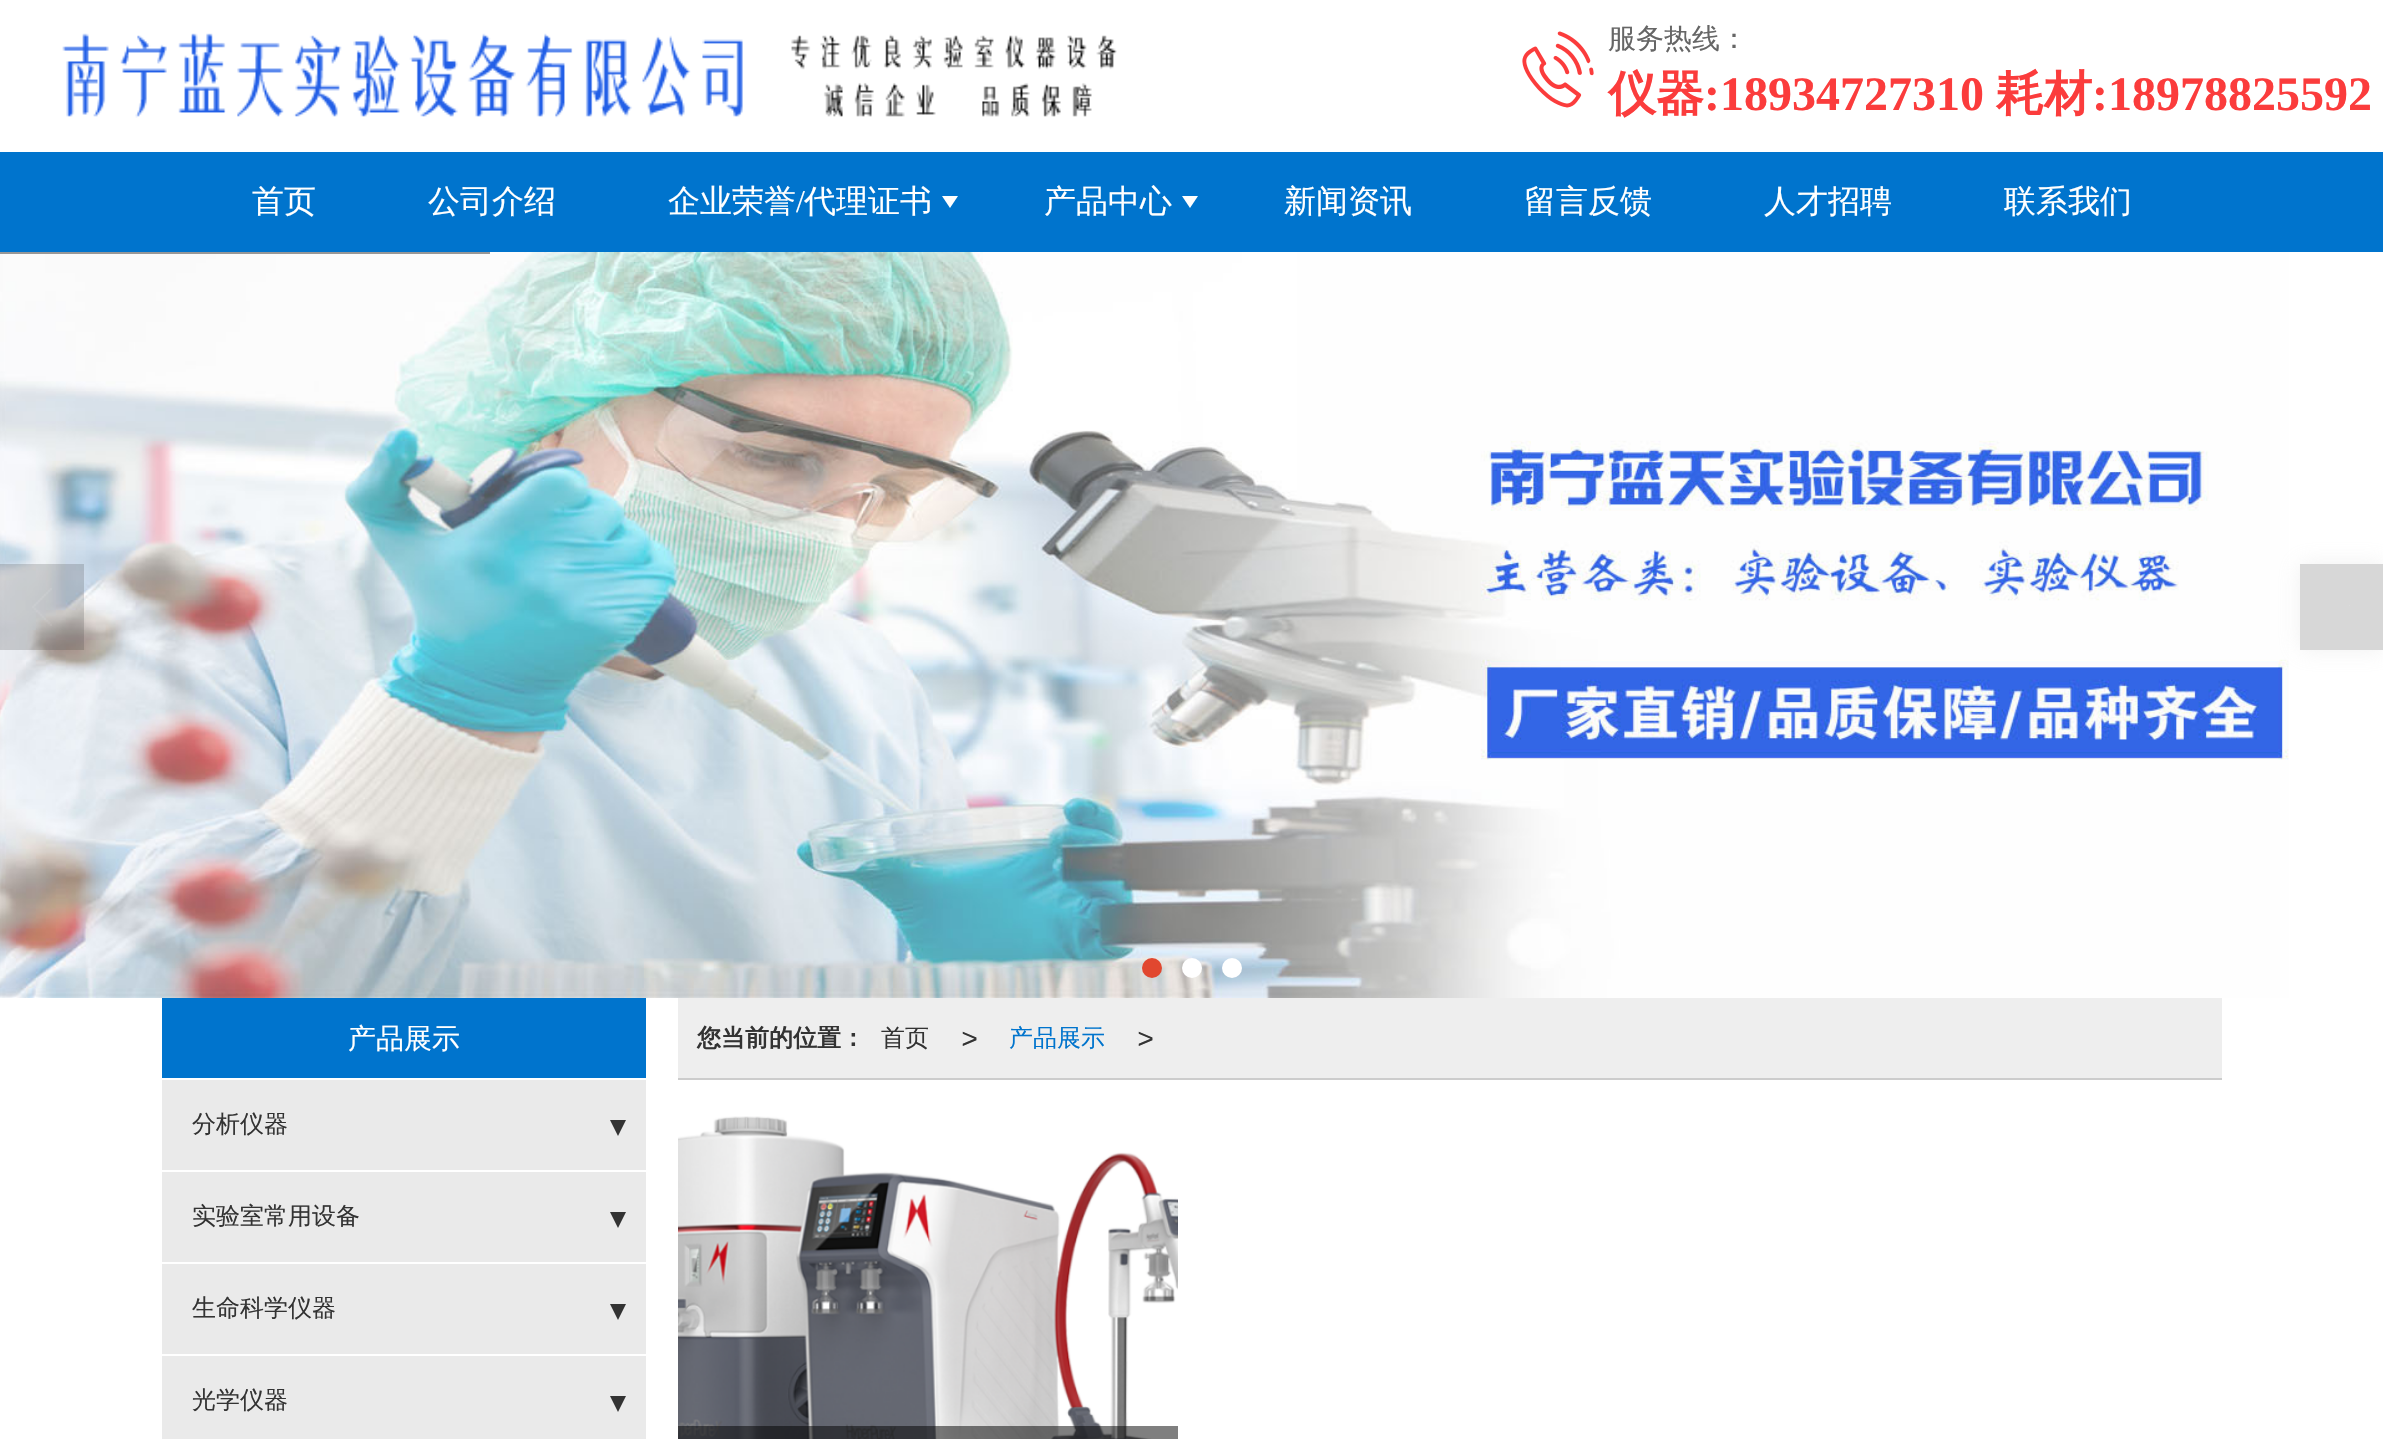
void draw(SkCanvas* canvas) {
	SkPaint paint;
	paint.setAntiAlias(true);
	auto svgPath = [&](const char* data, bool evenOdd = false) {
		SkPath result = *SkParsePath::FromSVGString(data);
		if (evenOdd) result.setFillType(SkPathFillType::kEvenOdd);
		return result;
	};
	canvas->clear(0xffffffff);
	canvas->drawImageRect(SkImages::DeferredFromEncodedData(SkData::MakeFromFileName("img1.png")), SkRect::MakeXYWH(62, 33, 1055, 85), SkSamplingOptions());
	canvas->drawImageRect(SkImages::DeferredFromEncodedData(SkData::MakeFromFileName("img2.png")), SkRect::MakeXYWH(1522, 31, 72, 77), SkSamplingOptions());
	SkFont f1(fontMgr->matchFamilyStyle("WenQuanYi Zen Hei", SkFontStyle(500, SkFontStyle::kNormal_Width, SkFontStyle::kUpright_Slant)), 28);
	f1.setSubpixel(true);
	paint.setColor(0xff666666);
	canvas->drawString("服务热线：", 1608, 48, f1, paint);
	SkFont f2(fontMgr->matchFamilyStyle("WenQuanYi Zen Hei", SkFontStyle::Bold()), 48);
	f2.setSubpixel(true);
	paint.setColor(0xfffb3c3c);
	canvas->drawString("仪器", 1608, 110, f2, paint);
	SkFont f3(fontMgr->matchFamilyStyle("Liberation Serif", SkFontStyle::Bold()), 48);
	f3.setSubpixel(true);
	canvas->drawString(":18934727310", 1704, 110, f3, paint);
	canvas->drawString("耗材", 1996, 110, f2, paint);
	canvas->drawString(":18978825592", 2092, 110, f3, paint);
	paint.setColor(0xff0074cd);
	canvas->drawRect(SkRect::MakeXYWH(0, 152, 2383, 100), paint);
	SkFont f4(fontMgr->matchFamilyStyle("WenQuanYi Zen Hei", SkFontStyle(500, SkFontStyle::kNormal_Width, SkFontStyle::kUpright_Slant)), 32);
	f4.setSubpixel(true);
	paint.setColor(0xffffffff);
	canvas->drawString("首页", 252, 212, f4, paint);
	canvas->drawString("公司介绍", 428, 212, f4, paint);
	canvas->drawString("企业荣誉", 668, 212, f4, paint);
	SkFont f5(fontMgr->matchFamilyStyle("Liberation Serif", SkFontStyle::Normal()), 32);
	f5.setSubpixel(true);
	canvas->drawString("/", 796, 212, f5, paint);
	canvas->drawString("代理证书", 804, 212, f4, paint);
	canvas->drawPath(svgPath("M942 196H958L950 208Z"), paint);
	canvas->drawString("产品中心", 1044, 212, f4, paint);
	canvas->drawPath(svgPath("M1182 196H1198L1190 208Z"), paint);
	canvas->drawString("新闻资讯", 1284, 212, f4, paint);
	canvas->drawString("留言反馈", 1524, 212, f4, paint);
	canvas->drawString("人才招聘", 1764, 212, f4, paint);
	canvas->drawString("联系我们", 2004, 212, f4, paint);
	canvas->drawImageRect(SkImages::DeferredFromEncodedData(SkData::MakeFromFileName("img3.png")), SkRect::MakeXYWH(0, 252, 2289, 746), SkSamplingOptions());
	paint.setColor(0xff979797);
	canvas->drawRect(SkRect::MakeXYWH(0, 252, 490, 2), paint);
	paint.setColor(0x4dcccccc);
	paint.setMaskFilter(SkMaskFilter::MakeBlur(kNormal_SkBlurStyle, 10));
	canvas->drawRect(SkRect::MakeXYWH(2300, 564, 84, 86), paint);
	paint.setMaskFilter(nullptr);
	paint.setColor(0xffd7d7d7);
	canvas->drawRect(SkRect::MakeXYWH(2300, 564, 83, 86), paint);
	paint.setColor(0xffdbdbdb);
	canvas->drawRect(SkRect::MakeXYWH(2349, 605, 1, 1), paint);
	paint.setColor(0x33393939);
	canvas->drawRect(SkRect::MakeXYWH(0, 564, 84, 86), paint);
	canvas->drawImageRect(SkImages::DeferredFromEncodedData(SkData::MakeFromFileName("img4.png")), SkRect::MakeXYWH(32, 588, 20, 38), SkSamplingOptions());
	paint.setColor(0xffe1472f);
	canvas->drawCircle(1152, 968, 10, paint);
	paint.setColor(0xffffffff);
	canvas->drawCircle(1192, 968, 10, paint);
	canvas->drawCircle(1232, 968, 10, paint);
	paint.setColor(0xff0074cd);
	canvas->drawRect(SkRect::MakeXYWH(162, 998, 484, 80), paint);
	paint.setColor(0xffffffff);
	canvas->drawString("产品展示", 348, 1048, f1, paint);
	paint.setColor(0xffeaeaea);
	canvas->drawRect(SkRect::MakeXYWH(162, 1080, 484, 359), paint);
	SkFont f6(fontMgr->matchFamilyStyle("WenQuanYi Zen Hei", SkFontStyle(500, SkFontStyle::kNormal_Width, SkFontStyle::kUpright_Slant)), 24);
	f6.setSubpixel(true);
	paint.setColor(0xff333333);
	canvas->drawString("分析仪器", 192, 1132, f6, paint);
	canvas->drawPath(svgPath("M610 1120H626L618 1136Z"), paint);
	paint.setColor(0xffffffff);
	canvas->drawRect(SkRect::MakeXYWH(162, 1170, 484, 2), paint);
	paint.setColor(0xff333333);
	canvas->drawString("实验室常用设备", 192, 1224, f6, paint);
	canvas->drawPath(svgPath("M610 1212H626L618 1228Z"), paint);
	paint.setColor(0xffffffff);
	canvas->drawRect(SkRect::MakeXYWH(162, 1262, 484, 2), paint);
	paint.setColor(0xff333333);
	canvas->drawString("生命科学仪器", 192, 1316, f6, paint);
	canvas->drawPath(svgPath("M610 1304H626L618 1320Z"), paint);
	paint.setColor(0xffffffff);
	canvas->drawRect(SkRect::MakeXYWH(162, 1354, 484, 2), paint);
	paint.setColor(0xff333333);
	canvas->drawString("光学仪器", 192, 1408, f6, paint);
	canvas->drawPath(svgPath("M610 1396H626L618 1412Z"), paint);
	paint.setColor(0xffeeeeee);
	canvas->drawRect(SkRect::MakeXYWH(678, 998, 1544, 80), paint);
	paint.setColor(0xffcccccc);
	canvas->drawRect(SkRect::MakeXYWH(678, 1078, 1544, 2), paint);
	SkFont f7(fontMgr->matchFamilyStyle("WenQuanYi Zen Hei", SkFontStyle::Bold()), 24);
	f7.setSubpixel(true);
	paint.setColor(0xff333333);
	canvas->drawString("您当前的位置：", 697, 1046, f7, paint);
	canvas->drawString("首页", 881, 1046, f6, paint);
	SkFont f8(fontMgr->matchFamilyStyle("Liberation Sans", SkFontStyle::Italic()), 28);
	f8.setSubpixel(true);
	canvas->drawString(">", 961, 1048, f8, paint);
	paint.setColor(0xff0074cd);
	canvas->drawString("产品展示", 1009, 1046, f6, paint);
	paint.setColor(0xff333333);
	canvas->drawString(">", 1137, 1048, f8, paint);
	canvas->drawImageRect(SkImages::DeferredFromEncodedData(SkData::MakeFromFileName("img5.png")), SkRect::MakeXYWH(678, 1116, 500, 323), SkSamplingOptions());
	paint.setColor(0x80000000);
	canvas->drawRect(SkRect::MakeXYWH(678, 1426, 500, 13), paint);
}
